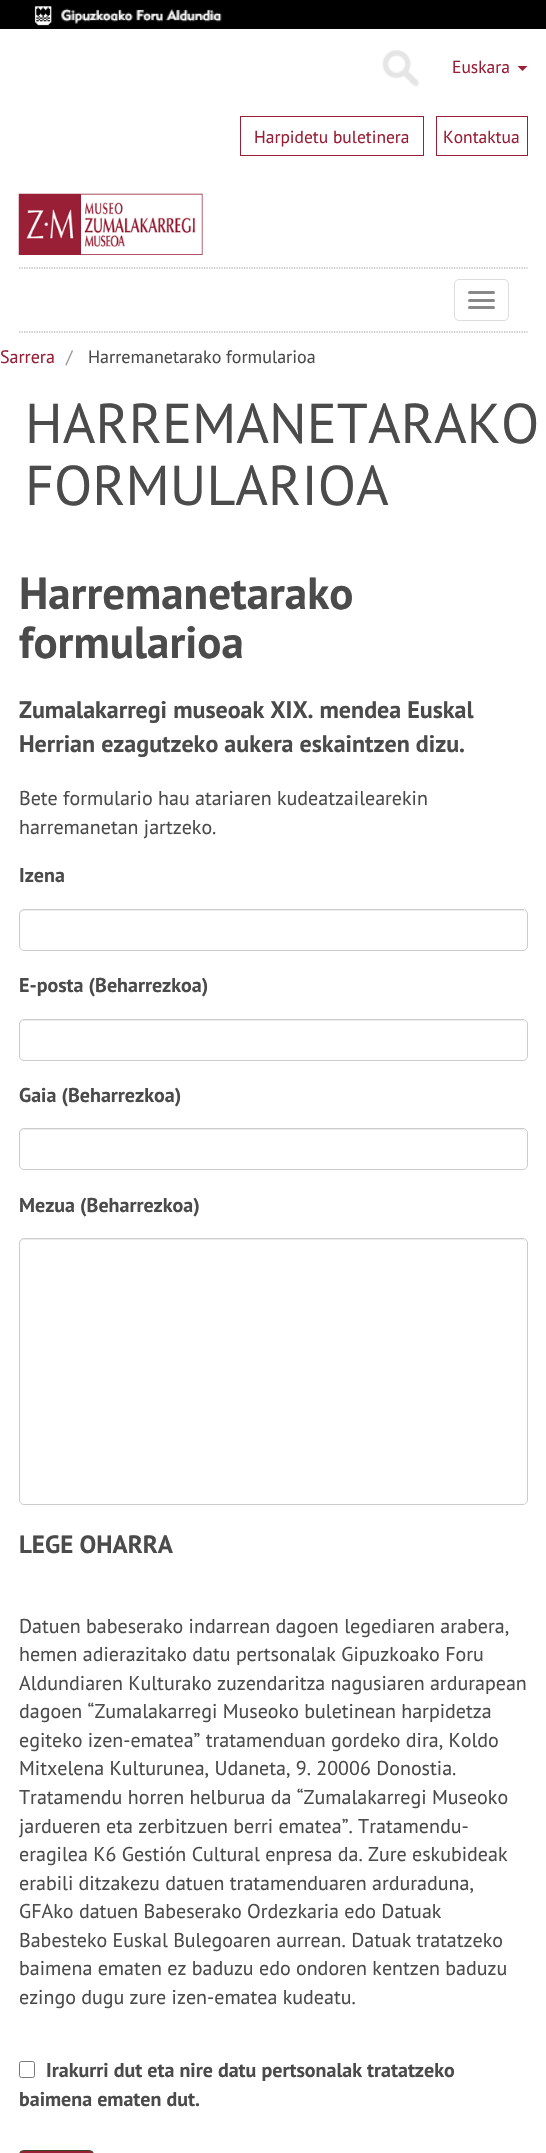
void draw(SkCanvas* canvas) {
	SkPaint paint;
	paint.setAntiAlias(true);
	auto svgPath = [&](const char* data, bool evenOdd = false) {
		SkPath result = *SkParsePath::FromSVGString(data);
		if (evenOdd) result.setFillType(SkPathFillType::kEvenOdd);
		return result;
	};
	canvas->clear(0xffffffff);
	paint.setColor(0xff000000);
	canvas->drawRect(SkRect::MakeXYWH(0, 0, 546, 29), paint);
	canvas->drawImageRect(SkImages::DeferredFromEncodedData(SkData::MakeFromFileName("img1.png")), SkRect::MakeXYWH(34, 6, 188, 20), SkSamplingOptions());
	canvas->drawImageRect(SkImages::DeferredFromEncodedData(SkData::MakeFromFileName("img2.png")), SkRect::MakeXYWH(382, 50, 37, 37), SkSamplingOptions());
	SkFont f1(fontMgr->matchFamilyStyle("PT Sans", SkFontStyle::Normal()), 17.5);
	f1.setSubpixel(true);
	paint.setColor(0xff991f36);
	canvas->drawString("Euskara", 452, 73, f1, paint);
	canvas->drawPath(svgPath("M517.5 66H527.5L522.5 71Z"), paint);
	paint.setStroke(true);
	paint.setStrokeWidth(1);
	canvas->drawRect(SkRect::MakeXYWH(240.5, 116.5, 183, 39), paint);
	paint.setStroke(false);
	canvas->drawString("Harpidetu buletinera", 254, 143, f1, paint);
	paint.setStroke(true);
	canvas->drawRect(SkRect::MakeXYWH(436.5, 116.5, 91, 39), paint);
	paint.setStroke(false);
	canvas->drawString("Kontaktua", 443, 143, f1, paint);
	canvas->drawImageRect(SkImages::DeferredFromEncodedData(SkData::MakeFromFileName("img3.png")), SkRect::MakeXYWH(18, 193, 185, 62), SkSamplingOptions());
	paint.setStroke(true);
	paint.setStrokeWidth(1.2);
	paint.setColor(0xff999999);
	paint.setPathEffect(SkDashPathEffect::Make({{1.25f, 1.25f}}, 0));
	canvas->drawPath(svgPath("M19 268H527.5"), paint);
	paint.setPathEffect(nullptr);
	paint.setPathEffect(SkDashPathEffect::Make({{1.25f, 1.25f}}, 0));
	canvas->drawPath(svgPath("M19 332H527.5"), paint);
	paint.setPathEffect(nullptr);
	paint.setStrokeWidth(1);
	paint.setColor(0xffdddddd);
	canvas->drawRoundRect(SkRect::MakeXYWH(454.5, 279.5, 54, 41), 4.5, 4.5, paint);
	paint.setStroke(false);
	paint.setColor(0xff888888);
	canvas->drawRoundRect(SkRect::MakeXYWH(468, 291, 27, 3), 1.5, 1.5, paint);
	canvas->drawRoundRect(SkRect::MakeXYWH(468, 299, 27, 3), 1.5, 1.5, paint);
	canvas->drawRoundRect(SkRect::MakeXYWH(468, 306, 27, 3), 1.5, 1.5, paint);
	SkFont f2(fontMgr->matchFamilyStyle("PT Sans", SkFontStyle::Normal()), 18);
	f2.setSubpixel(true);
	paint.setColor(0xff991f36);
	canvas->drawString("Sarrera", 0, 363, f2, paint);
	paint.setColor(0xff999999);
	canvas->drawString("/", 66, 363, f2, paint);
	paint.setColor(0xff4b4b4b);
	canvas->drawString("Harremanetarako formularioa", 88, 363, f2, paint);
	SkFont f3(fontMgr->matchFamilyStyle("PT Sans", SkFontStyle::Normal()), 56);
	f3.setSubpixel(true);
	canvas->drawString("HARREMANETARAKO", 25, 443, f3, paint);
	canvas->drawString("FORMULARIOA", 25, 505, f3, paint);
	SkFont f4(fontMgr->matchFamilyStyle("PT Sans", SkFontStyle::Bold()), 45);
	f4.setSubpixel(true);
	canvas->drawString("Harremanetarako", 19, 609, f4, paint);
	canvas->drawString("formularioa", 19, 658, f4, paint);
	SkFont f5(fontMgr->matchFamilyStyle("PT Sans", SkFontStyle::Bold()), 24);
	f5.setSubpixel(true);
	canvas->drawString("Zumalakarregi museoak XIX. mendea Euskal", 19, 718, f5, paint);
	canvas->drawString("Herrian ezagutzeko aukera eskaintzen dizu.", 19, 752, f5, paint);
	SkFont f6(fontMgr->matchFamilyStyle("PT Sans", SkFontStyle::Normal()), 20);
	f6.setSubpixel(true);
	canvas->drawString("Bete formulario hau atariaren kudeatzailearekin", 19, 805, f6, paint);
	canvas->drawString("harremanetan jartzeko.", 19, 834, f6, paint);
	SkFont f7(fontMgr->matchFamilyStyle("PT Sans", SkFontStyle::Bold()), 20);
	f7.setSubpixel(true);
	canvas->drawString("Izena", 19, 882, f7, paint);
	paint.setColor(0xffececec);
	canvas->drawPath(svgPath("M24 911H522C525 911 526 913 526 915V914C526 912 524 910 522 910H24C22 910 20 912 20 914V915C20 913 22 911 24 911Z"), paint);
	paint.setStroke(true);
	paint.setColor(0xffcccccc);
	canvas->drawRoundRect(SkRect::MakeXYWH(19.5, 909.5, 508, 41), 4.5, 4.5, paint);
	paint.setStroke(false);
	paint.setColor(0xff4b4b4b);
	canvas->drawString("E-posta (Beharrezkoa)", 19, 992, f7, paint);
	paint.setColor(0xffececec);
	canvas->drawPath(svgPath("M24 1021H522C525 1021 526 1023 526 1025V1024C526 1022 524 1020 522 1020H24C22 1020 20 1022 20 1024V1025C20 1023 22 1021 24 1021Z"), paint);
	paint.setStroke(true);
	paint.setColor(0xffcccccc);
	canvas->drawRoundRect(SkRect::MakeXYWH(19.5, 1019.5, 508, 41), 4.5, 4.5, paint);
	paint.setStroke(false);
	paint.setColor(0xff4b4b4b);
	canvas->drawString("Gaia (Beharrezkoa)", 19, 1102, f7, paint);
	paint.setColor(0xffececec);
	canvas->drawPath(svgPath("M24 1130H522C525 1130 526 1132 526 1134V1133C526 1131 524 1129 522 1129H24C22 1129 20 1131 20 1133V1134C20 1132 22 1130 24 1130Z"), paint);
	paint.setStroke(true);
	paint.setColor(0xffcccccc);
	canvas->drawRoundRect(SkRect::MakeXYWH(19.5, 1128.5, 508, 41), 4.5, 4.5, paint);
	paint.setStroke(false);
	paint.setColor(0xff4b4b4b);
	canvas->drawString("Mezua (Beharrezkoa)", 19, 1212, f7, paint);
	paint.setColor(0xffececec);
	canvas->drawPath(svgPath("M24 1240H522C525 1240 526 1242 526 1244V1243C526 1241 524 1239 522 1239H24C22 1239 20 1241 20 1243V1244C20 1242 22 1240 24 1240Z"), paint);
	paint.setStroke(true);
	paint.setColor(0xffcccccc);
	canvas->drawRoundRect(SkRect::MakeXYWH(19.5, 1238.5, 508, 266), 4.5, 4.5, paint);
	SkFont f8(fontMgr->matchFamilyStyle("PT Sans", SkFontStyle::Bold()), 25);
	f8.setSubpixel(true);
	paint.setStroke(false);
	paint.setColor(0xff4b4b4b);
	canvas->drawString("LEGE OHARRA", 19, 1553, f8, paint);
	canvas->drawString("Datuen babeserako indarrean dagoen legediaren arabera,", 19, 1633, f6, paint);
	canvas->drawString("hemen adierazitako datu pertsonalak Gipuzkoako Foru", 19, 1661, f6, paint);
	canvas->drawString("Aldundiaren Kulturako zuzendaritza nagusiaren ardurapean", 19, 1690, f6, paint);
	canvas->drawString("dagoen “Zumalakarregi Museoko buletinean harpidetza", 19, 1718, f6, paint);
	canvas->drawString("egiteko izen-ematea” tratamenduan gordeko dira, Koldo", 19, 1747, f6, paint);
	canvas->drawString("Mitxelena Kulturunea, Udaneta, 9. 20006 Donostia.", 19, 1775, f6, paint);
	canvas->drawString("Tratamendu horren helburua da “Zumalakarregi Museoko", 19, 1804, f6, paint);
	canvas->drawString("jardueren eta zerbitzuen berri ematea”. Tratamendu-", 19, 1833, f6, paint);
	canvas->drawString("eragilea K6 Gestión Cultural enpresa da. Zure eskubideak", 19, 1861, f6, paint);
	canvas->drawString("erabili ditzakezu datuen tratamenduaren arduraduna,", 19, 1890, f6, paint);
	canvas->drawString("GFAko datuen Babeserako Ordezkaria edo Datuak", 19, 1918, f6, paint);
	canvas->drawString("Babesteko Euskal Bulegoaren aurrean. Datuak tratatzeko", 19, 1947, f6, paint);
	canvas->drawString("baimena ematen ez baduzu edo ondoren kentzen baduzu", 19, 1975, f6, paint);
	canvas->drawString("ezingo dugu zure izen-ematea kudeatu.", 19, 2004, f6, paint);
	paint.setStroke(true);
	paint.setColor(0xff767676);
	canvas->drawRoundRect(SkRect::MakeXYWH(19.5, 2061.5, 15, 16), 2, 2, paint);
	paint.setStroke(false);
	paint.setColor(0xff4b4b4b);
	canvas->drawString("Irakurri dut eta nire datu pertsonalak tratatzeko", 46, 2077, f7, paint);
	canvas->drawString("baimena ematen dut.", 19, 2106, f7, paint);
	paint.setColor(0xff991f36);
	canvas->drawRoundRect(SkRect::MakeXYWH(19.5, 2150.5, 74, 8), 4.5, 4.5, paint);
	paint.setStroke(true);
	paint.setColor(0xff374826);
	canvas->drawRoundRect(SkRect::MakeXYWH(19.5, 2150.5, 74, 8), 4.5, 4.5, paint);
}
